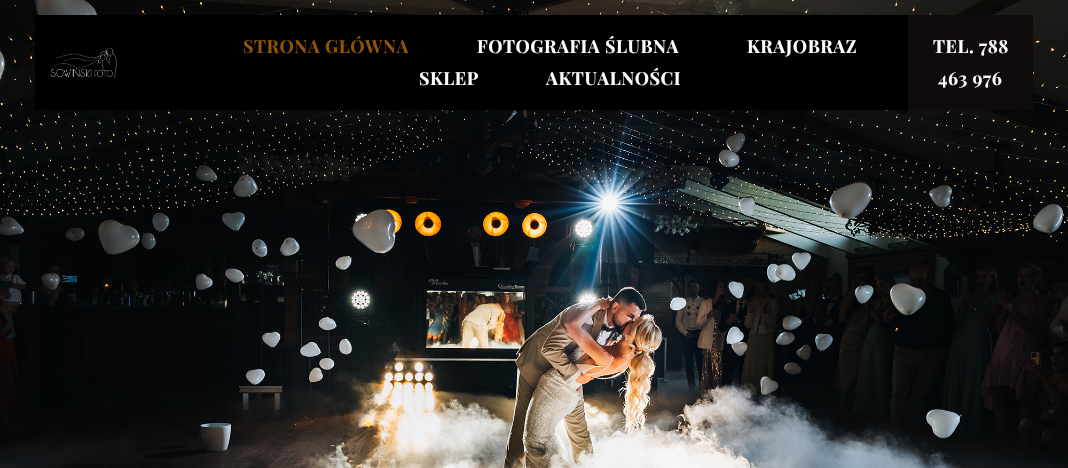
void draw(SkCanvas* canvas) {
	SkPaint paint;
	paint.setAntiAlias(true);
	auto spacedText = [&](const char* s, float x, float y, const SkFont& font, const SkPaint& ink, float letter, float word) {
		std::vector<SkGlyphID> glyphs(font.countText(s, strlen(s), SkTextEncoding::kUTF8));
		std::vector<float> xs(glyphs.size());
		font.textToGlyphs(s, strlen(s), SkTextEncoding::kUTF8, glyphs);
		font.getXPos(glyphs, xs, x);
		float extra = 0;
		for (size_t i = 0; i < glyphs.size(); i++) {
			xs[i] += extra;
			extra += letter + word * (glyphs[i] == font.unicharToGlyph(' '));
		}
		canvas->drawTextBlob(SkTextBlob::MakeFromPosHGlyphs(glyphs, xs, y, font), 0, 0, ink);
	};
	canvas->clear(0xffffffff);
	canvas->drawImageRect(SkImages::DeferredFromEncodedData(SkData::MakeFromFileName("img1.png")), SkRect::MakeXYWH(0, 0, 1068, 468), SkSamplingOptions());
	paint.setColor(0xff000000);
	canvas->drawRect(SkRect::MakeXYWH(35, 15, 873, 95), paint);
	canvas->drawImageRect(SkImages::DeferredFromEncodedData(SkData::MakeFromFileName("img2.png")), SkRect::MakeXYWH(50, 48, 67, 30), SkSamplingOptions());
	SkFont f1(fontMgr->matchFamilyStyle("Playfair Display", SkFontStyle::Bold()), 18);
	f1.setSubpixel(true);
	paint.setColor(0xff925406);
	spacedText("STRONA GŁÓWNA", 243, 53, f1, paint, 0.5, 0);
	paint.setColor(0xffffffff);
	spacedText("FOTOGRAFIA ŚLUBNA", 477, 53, f1, paint, 0.5, 0);
	spacedText("KRAJOBRAZ", 747, 53, f1, paint, 0.5, 0);
	spacedText("SKLEP", 419, 85, f1, paint, 0.5, 0);
	spacedText("AKTUALNOŚCI", 546, 85, f1, paint, 0.5, 0);
	paint.setColor(0xff100c0c);
	canvas->drawRect(SkRect::MakeXYWH(908, 15, 125, 95), paint);
	paint.setColor(0xffffffff);
	spacedText("TEL. 788", 933, 53, f1, paint, 0.5, 0);
	spacedText("463 976", 938, 85, f1, paint, 0.5, 0);
}
